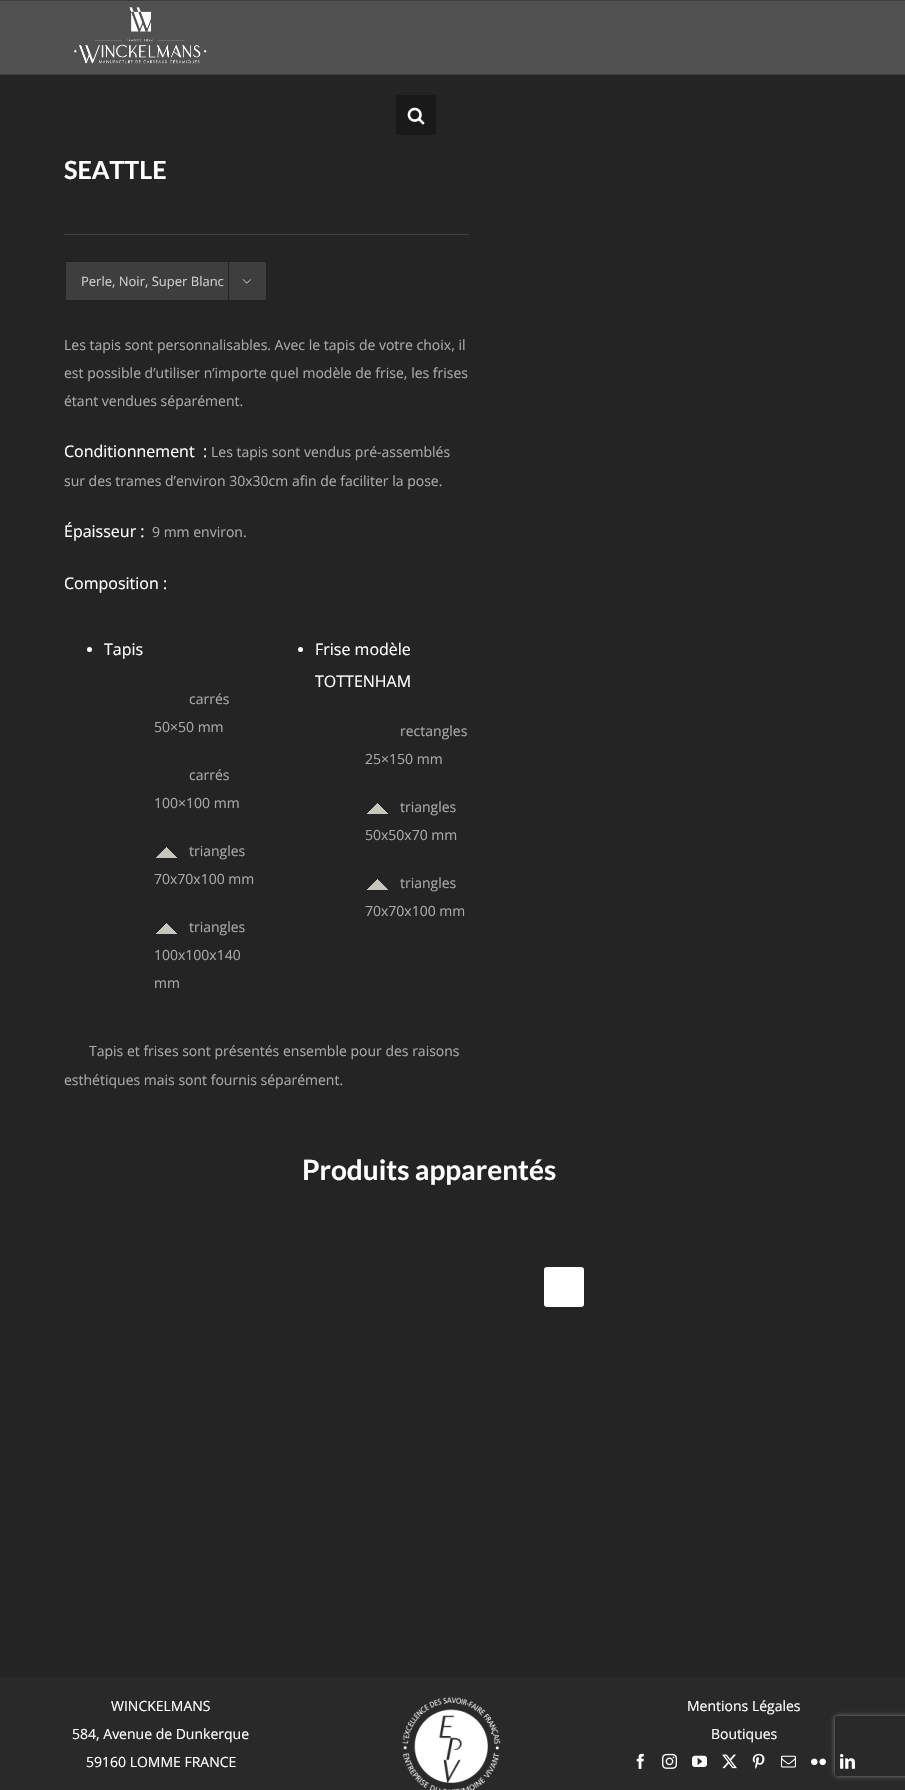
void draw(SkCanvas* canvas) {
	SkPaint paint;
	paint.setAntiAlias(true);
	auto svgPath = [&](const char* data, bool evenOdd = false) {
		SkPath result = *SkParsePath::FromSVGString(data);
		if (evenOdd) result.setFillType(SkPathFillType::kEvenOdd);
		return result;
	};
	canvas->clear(0xff242424);
	paint.setColor(0xff3e3e3e);
	canvas->drawRect(SkRect::MakeXYWH(0, 0, 905, 1), paint);
	paint.setColor(0xff515151);
	canvas->drawRect(SkRect::MakeXYWH(0, 1, 905, 73), paint);
	paint.setColor(0xff3e3e3e);
	canvas->drawRect(SkRect::MakeXYWH(0, 74, 905, 1), paint);
	canvas->drawImageRect(SkImages::DeferredFromEncodedData(SkData::MakeFromFileName("img1.png")), SkRect::MakeXYWH(73, 7, 134, 57), SkSamplingOptions());
	paint.setColor(0xff191919);
	canvas->drawRect(SkRect::MakeXYWH(396, 95, 40, 40), paint);
	canvas->drawImageRect(SkImages::DeferredFromEncodedData(SkData::MakeFromFileName("img2.png")), SkRect::MakeXYWH(407, 107, 18, 18), SkSamplingOptions());
	SkFont f1(fontMgr->matchFamilyStyle("Lato", SkFontStyle::Bold()), 25);
	f1.setSubpixel(true);
	paint.setColor(0xffffffff);
	canvas->drawString("SEATTLE", 64, 179, f1, paint);
	paint.setColor(0xff3e3e3e);
	canvas->drawRect(SkRect::MakeXYWH(64, 234, 405, 1), paint);
	canvas->drawRect(SkRect::MakeXYWH(65.5, 261.5, 201, 39), paint);
	paint.setStroke(true);
	paint.setStrokeWidth(1);
	paint.setColor(0xff212122);
	canvas->drawRect(SkRect::MakeXYWH(65.5, 261.5, 201, 39), paint);
	SkFont f2(fontMgr->matchFamilyStyle("Open Sans", SkFontStyle::Normal()), 13);
	f2.setSubpixel(true);
	paint.setStroke(false);
	paint.setColor(0xffcccccc);
	canvas->drawString("Perle, Noir, Super Blanc", 81, 286, f2, paint);
	paint.setColor(0xff212122);
	canvas->drawRect(SkRect::MakeXYWH(228, 262, 1, 38), paint);
	canvas->drawImageRect(SkImages::DeferredFromEncodedData(SkData::MakeFromFileName("img3.png")), SkRect::MakeXYWH(242, 279, 9, 5), SkSamplingOptions());
	SkFont f3(fontMgr->matchFamilyStyle("Open Sans", SkFontStyle::Normal()), 14);
	f3.setSubpixel(true);
	paint.setColor(0xffaaa9a9);
	canvas->drawString("Les tapis sont personnalisables. Avec le tapis de votre choix, il", 64, 350, f3, paint);
	canvas->drawString("est possible d’utiliser n’importe quel modèle de frise, les frises", 64, 378, f3, paint);
	canvas->drawString("étant vendues séparément.", 64, 406, f3, paint);
	SkFont f4(fontMgr->matchFamilyStyle("Open Sans", SkFontStyle::Normal()), 16);
	f4.setSubpixel(true);
	paint.setColor(0xffffffff);
	canvas->drawString("Conditionnement  :", 64, 457, f4, paint);
	paint.setColor(0xffaaa9a9);
	canvas->drawString("Les tapis sont vendus pré-assemblés", 211, 457, f3, paint);
	canvas->drawString("sur des trames d’environ 30x30cm afin de faciliter la pose.", 64, 486, f3, paint);
	paint.setColor(0xffffffff);
	canvas->drawString("Épaisseur :", 64, 537, f4, paint);
	paint.setColor(0xffaaa9a9);
	canvas->drawString("9 mm environ.", 152, 537, f3, paint);
	paint.setColor(0xffffffff);
	canvas->drawString("Composition :", 64, 589, f4, paint);
	canvas->drawCircle(89.5, 649.5, 2.5, paint);
	canvas->drawString("Tapis", 104, 655, f4, paint);
	paint.setColor(0xffaaa9a9);
	canvas->drawString("carrés", 189, 704, f3, paint);
	canvas->drawString("50×50 mm", 154, 732, f3, paint);
	canvas->drawString("carrés", 189, 780, f3, paint);
	canvas->drawString("100×100 mm", 154, 808, f3, paint);
	canvas->drawImageRect(SkImages::DeferredFromEncodedData(SkData::MakeFromFileName("img4.png")), SkRect::MakeXYWH(156, 847, 21, 11), SkSamplingOptions());
	canvas->drawString("triangles", 189, 856, f3, paint);
	canvas->drawString("70x70x100 mm", 154, 884, f3, paint);
	canvas->drawImageRect(SkImages::DeferredFromEncodedData(SkData::MakeFromFileName("img4.png")), SkRect::MakeXYWH(156, 923, 21, 11), SkSamplingOptions());
	canvas->drawString("triangles", 189, 932, f3, paint);
	canvas->drawString("100x100x140", 154, 960, f3, paint);
	canvas->drawString("mm", 154, 988, f3, paint);
	paint.setColor(0xffffffff);
	canvas->drawCircle(300.5, 649.5, 2.5, paint);
	canvas->drawString("Frise modèle", 315, 655, f4, paint);
	canvas->drawString("TOTTENHAM", 315, 687, f4, paint);
	paint.setColor(0xffaaa9a9);
	canvas->drawString("rectangles", 400, 736, f3, paint);
	canvas->drawString("25×150 mm", 365, 764, f3, paint);
	canvas->drawImageRect(SkImages::DeferredFromEncodedData(SkData::MakeFromFileName("img4.png")), SkRect::MakeXYWH(367, 803, 21, 11), SkSamplingOptions());
	canvas->drawString("triangles", 400, 812, f3, paint);
	canvas->drawString("50x50x70 mm", 365, 840, f3, paint);
	canvas->drawImageRect(SkImages::DeferredFromEncodedData(SkData::MakeFromFileName("img4.png")), SkRect::MakeXYWH(367, 879, 21, 11), SkSamplingOptions());
	canvas->drawString("triangles", 400, 888, f3, paint);
	canvas->drawString("70x70x100 mm", 365, 916, f3, paint);
	canvas->drawString("Tapis et frises sont présentés ensemble pour des raisons", 89, 1056, f3, paint);
	canvas->drawString("esthétiques mais sont fournis séparément.", 64, 1085, f3, paint);
	SkFont f5(fontMgr->matchFamilyStyle("Lato", SkFontStyle::Bold()), 28);
	f5.setSubpixel(true);
	paint.setColor(0xffffffff);
	canvas->drawString("Produits apparentés", 302, 1180, f5, paint);
	canvas->drawRoundRect(SkRect::MakeXYWH(544, 1267, 40, 40), 3, 3, paint);
	paint.setColor(0xff29292a);
	canvas->drawRect(SkRect::MakeXYWH(0, 1677, 905, 113), paint);
	paint.setColor(0xffffffff);
	canvas->drawString("WINCKELMANS", 111, 1711, f3, paint);
	canvas->drawString("584, Avenue de Dunkerque", 72, 1739, f3, paint);
	canvas->drawString("59160 LOMME FRANCE", 86, 1767, f3, paint);
	canvas->drawImageRect(SkImages::DeferredFromEncodedData(SkData::MakeFromFileName("img5.png")), SkRect::MakeXYWH(402, 1697, 99, 93), SkSamplingOptions());
	canvas->drawString("Mentions Légales", 687, 1711, f3, paint);
	canvas->drawString("Boutiques", 711, 1739, f3, paint);
	canvas->drawImageRect(SkImages::DeferredFromEncodedData(SkData::MakeFromFileName("img6.png")), SkRect::MakeXYWH(636, 1753, 8, 16), SkSamplingOptions());
	canvas->drawImageRect(SkImages::DeferredFromEncodedData(SkData::MakeFromFileName("img7.png")), SkRect::MakeXYWH(662, 1753, 15, 16), SkSamplingOptions());
	canvas->drawImageRect(SkImages::DeferredFromEncodedData(SkData::MakeFromFileName("img8.png")), SkRect::MakeXYWH(692, 1755, 15, 12), SkSamplingOptions());
	canvas->drawImageRect(SkImages::DeferredFromEncodedData(SkData::MakeFromFileName("img9.png")), SkRect::MakeXYWH(722, 1754, 15, 15), SkSamplingOptions());
	canvas->drawImageRect(SkImages::DeferredFromEncodedData(SkData::MakeFromFileName("img10.png")), SkRect::MakeXYWH(752, 1753, 13, 16), SkSamplingOptions());
	canvas->drawImageRect(SkImages::DeferredFromEncodedData(SkData::MakeFromFileName("img11.png")), SkRect::MakeXYWH(781, 1755, 15, 13), SkSamplingOptions());
	canvas->drawImageRect(SkImages::DeferredFromEncodedData(SkData::MakeFromFileName("img12.png")), SkRect::MakeXYWH(811, 1758, 15, 8), SkSamplingOptions());
	canvas->drawImageRect(SkImages::DeferredFromEncodedData(SkData::MakeFromFileName("img13.png")), SkRect::MakeXYWH(840, 1754, 15, 15), SkSamplingOptions());
	canvas->save();
	canvas->clipPath(svgPath("M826 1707H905V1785H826ZM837 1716H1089C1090 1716 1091 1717 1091 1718V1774C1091 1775 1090 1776 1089 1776H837C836 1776 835 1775 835 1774V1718C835 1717 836 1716 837 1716Z", true), true);
	paint.setColor(0xff808080);
	paint.setMaskFilter(SkMaskFilter::MakeBlur(kNormal_SkBlurStyle, 2.5));
	canvas->drawRoundRect(SkRect::MakeXYWH(835, 1716, 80, 60), 2, 2, paint);
	paint.setMaskFilter(nullptr);
	canvas->restore();
}
